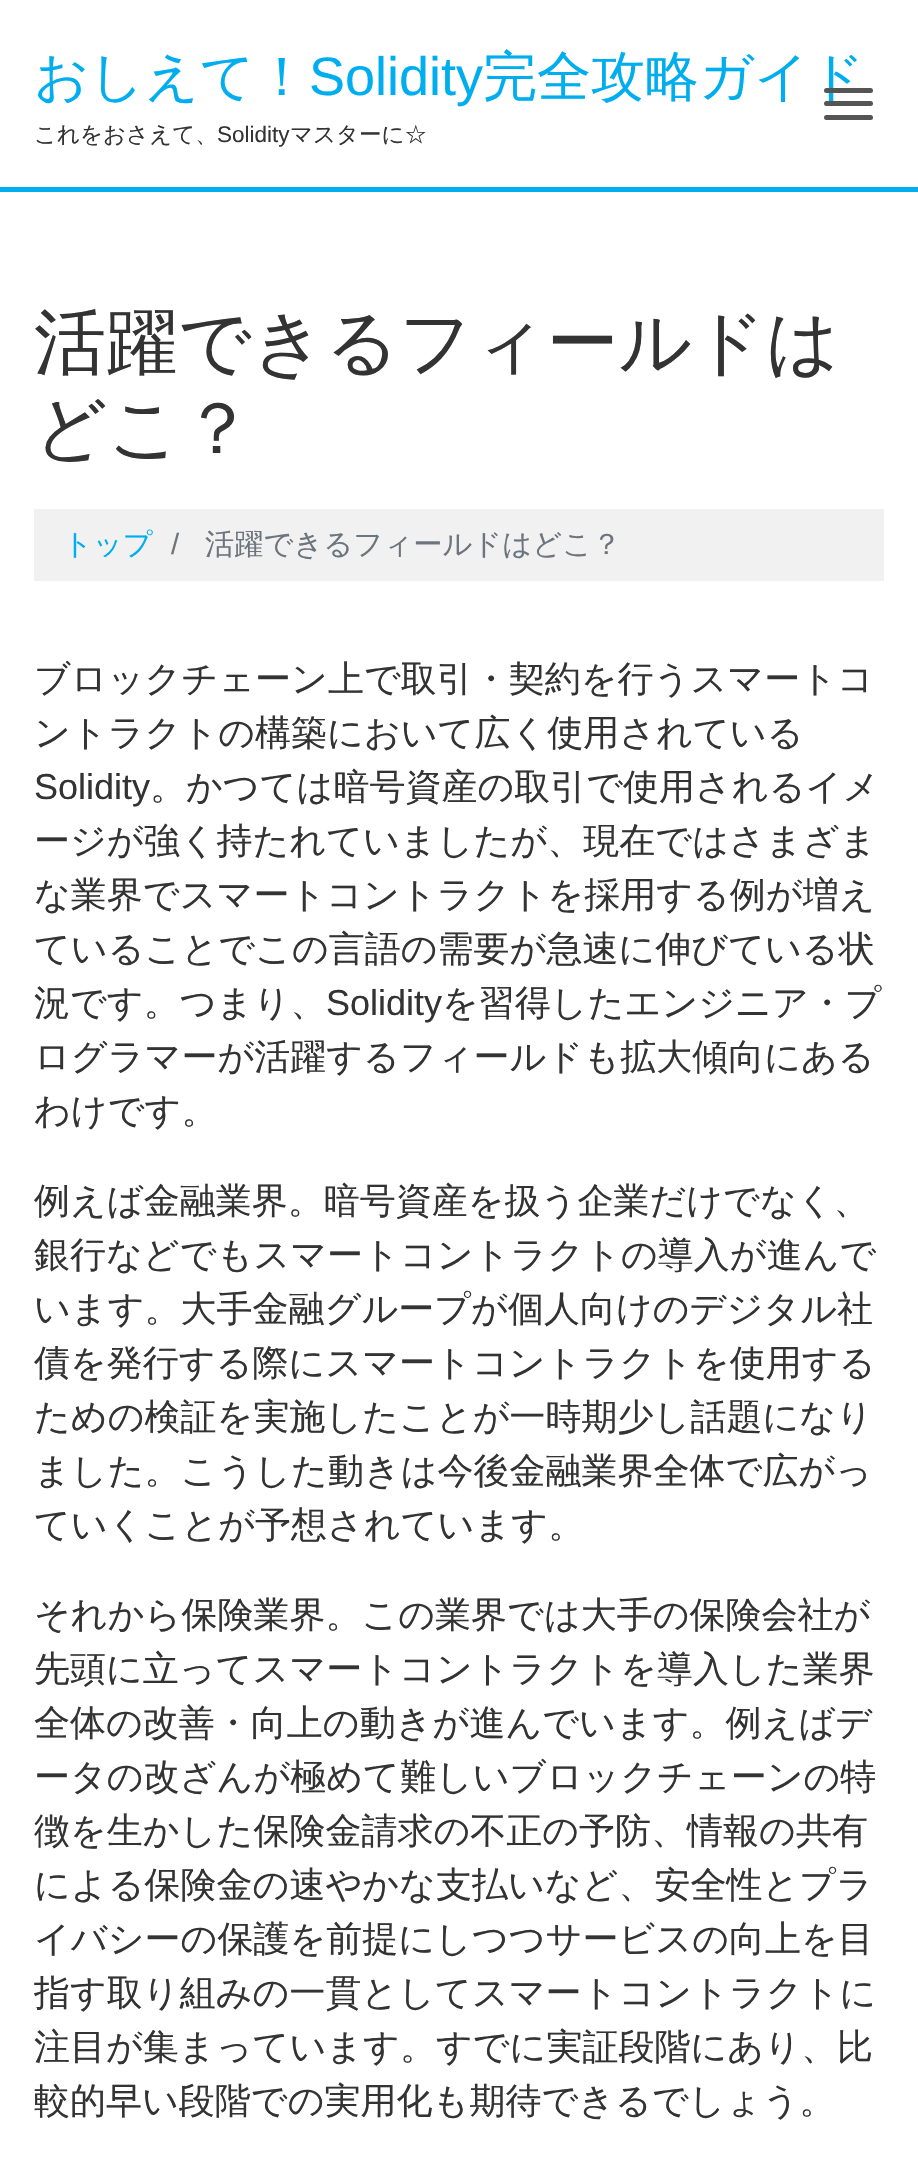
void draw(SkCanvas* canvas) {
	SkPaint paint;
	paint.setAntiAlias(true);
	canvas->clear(0xffffffff);
	SkFont f1(fontMgr->matchFamilyStyle("WenQuanYi Zen Hei", SkFontStyle(500, SkFontStyle::kNormal_Width, SkFontStyle::kUpright_Slant)), 54);
	f1.setSubpixel(true);
	paint.setColor(0xff00aeef);
	canvas->drawString("おしえて！", 34, 95, f1, paint);
	SkFont f2(fontMgr->matchFamilyStyle("Liberation Sans", SkFontStyle::Normal()), 54);
	f2.setSubpixel(true);
	canvas->drawString("Solidity", 309, 95, f2, paint);
	canvas->drawString("完全攻略ガイド", 483, 95, f1, paint);
	SkFont f3(fontMgr->matchFamilyStyle("WenQuanYi Zen Hei", SkFontStyle(500, SkFontStyle::kNormal_Width, SkFontStyle::kUpright_Slant)), 22.5);
	f3.setSubpixel(true);
	paint.setColor(0xff333333);
	canvas->drawString("これをおさえて、", 34, 142, f3, paint);
	SkFont f4(fontMgr->matchFamilyStyle("Liberation Sans", SkFontStyle::Normal()), 22.5);
	f4.setSubpixel(true);
	canvas->drawString("Solidity", 217, 142, f4, paint);
	canvas->drawString("マスターに☆", 290, 142, f3, paint);
	paint.setColor(0xff00aeef);
	canvas->drawRect(SkRect::MakeXYWH(0, 187, 918, 5), paint);
	paint.setColor(0xff555555);
	canvas->drawRoundRect(SkRect::MakeXYWH(824, 88, 49, 5), 2.5, 2.5, paint);
	canvas->drawRoundRect(SkRect::MakeXYWH(824, 101, 49, 5), 2.5, 2.5, paint);
	canvas->drawRoundRect(SkRect::MakeXYWH(824, 115, 49, 5), 2.5, 2.5, paint);
	SkFont f5(fontMgr->matchFamilyStyle("WenQuanYi Zen Hei", SkFontStyle(500, SkFontStyle::kNormal_Width, SkFontStyle::kUpright_Slant)), 72);
	f5.setSubpixel(true);
	paint.setColor(0xff333333);
	canvas->drawString("活躍できるフィールドは", 34, 367, f5, paint);
	canvas->drawString("どこ？", 34, 453, f5, paint);
	paint.setColor(0xfff1f1f1);
	canvas->drawRect(SkRect::MakeXYWH(34, 509, 850, 72), paint);
	SkFont f6(fontMgr->matchFamilyStyle("WenQuanYi Zen Hei", SkFontStyle(500, SkFontStyle::kNormal_Width, SkFontStyle::kUpright_Slant)), 29.25);
	f6.setSubpixel(true);
	paint.setColor(0xff00aeef);
	canvas->drawString("トップ", 63, 554, f6, paint);
	SkFont f7(fontMgr->matchFamilyStyle("Liberation Sans", SkFontStyle::Normal()), 29.25);
	f7.setSubpixel(true);
	paint.setColor(0xff6c757d);
	canvas->drawString("/", 171, 554, f7, paint);
	canvas->drawString("活躍できるフィールドはどこ？", 205, 554, f6, paint);
	SkFont f8(fontMgr->matchFamilyStyle("WenQuanYi Zen Hei", SkFontStyle(500, SkFontStyle::kNormal_Width, SkFontStyle::kUpright_Slant)), 36);
	f8.setSubpixel(true);
	paint.setColor(0xff333333);
	canvas->drawString("ブロックチェーン上で取引・契約を行うスマートコ", 34, 691, f8, paint);
	canvas->drawString("ントラクトの構築において広く使用されている", 34, 745, f8, paint);
	SkFont f9(fontMgr->matchFamilyStyle("Liberation Sans", SkFontStyle::Normal()), 36);
	f9.setSubpixel(true);
	canvas->drawString("Solidity", 34, 799, f9, paint);
	canvas->drawString("。かつては暗号資産の取引で使用されるイメ", 150, 799, f8, paint);
	canvas->drawString("ージが強く持たれていましたが、現在ではさまざま", 34, 853, f8, paint);
	canvas->drawString("な業界でスマートコントラクトを採用する例が増え", 34, 907, f8, paint);
	canvas->drawString("ていることでこの言語の需要が急速に伸びている状", 34, 961, f8, paint);
	canvas->drawString("況です。つまり、", 34, 1015, f8, paint);
	canvas->drawString("Solidity", 326, 1015, f9, paint);
	canvas->drawString("を習得したエンジニア・プ", 442, 1015, f8, paint);
	canvas->drawString("ログラマーが活躍するフィールドも拡大傾向にある", 34, 1069, f8, paint);
	canvas->drawString("わけです。", 34, 1123, f8, paint);
	canvas->drawString("例えば金融業界。暗号資産を扱う企業だけでなく、", 34, 1213, f8, paint);
	canvas->drawString("銀行などでもスマートコントラクトの導入が進んで", 34, 1267, f8, paint);
	canvas->drawString("います。大手金融グループが個人向けのデジタル社", 34, 1321, f8, paint);
	canvas->drawString("債を発行する際にスマートコントラクトを使用する", 34, 1375, f8, paint);
	canvas->drawString("ための検証を実施したことが一時期少し話題になり", 34, 1429, f8, paint);
	canvas->drawString("ました。こうした動きは今後金融業界全体で広がっ", 34, 1483, f8, paint);
	canvas->drawString("ていくことが予想されています。", 34, 1537, f8, paint);
	canvas->drawString("それから保険業界。この業界では大手の保険会社が", 34, 1627, f8, paint);
	canvas->drawString("先頭に立ってスマートコントラクトを導入した業界", 34, 1681, f8, paint);
	canvas->drawString("全体の改善・向上の動きが進んでいます。例えばデ", 34, 1735, f8, paint);
	canvas->drawString("ータの改ざんが極めて難しいブロックチェーンの特", 34, 1789, f8, paint);
	canvas->drawString("徴を生かした保険金請求の不正の予防、情報の共有", 34, 1843, f8, paint);
	canvas->drawString("による保険金の速やかな支払いなど、安全性とプラ", 34, 1897, f8, paint);
	canvas->drawString("イバシーの保護を前提にしつつサービスの向上を目", 34, 1951, f8, paint);
	canvas->drawString("指す取り組みの一貫としてスマートコントラクトに", 34, 2005, f8, paint);
	canvas->drawString("注目が集まっています。すでに実証段階にあり、比", 34, 2059, f8, paint);
	canvas->drawString("較的早い段階での実用化も期待できるでしょう。", 34, 2113, f8, paint);
}
